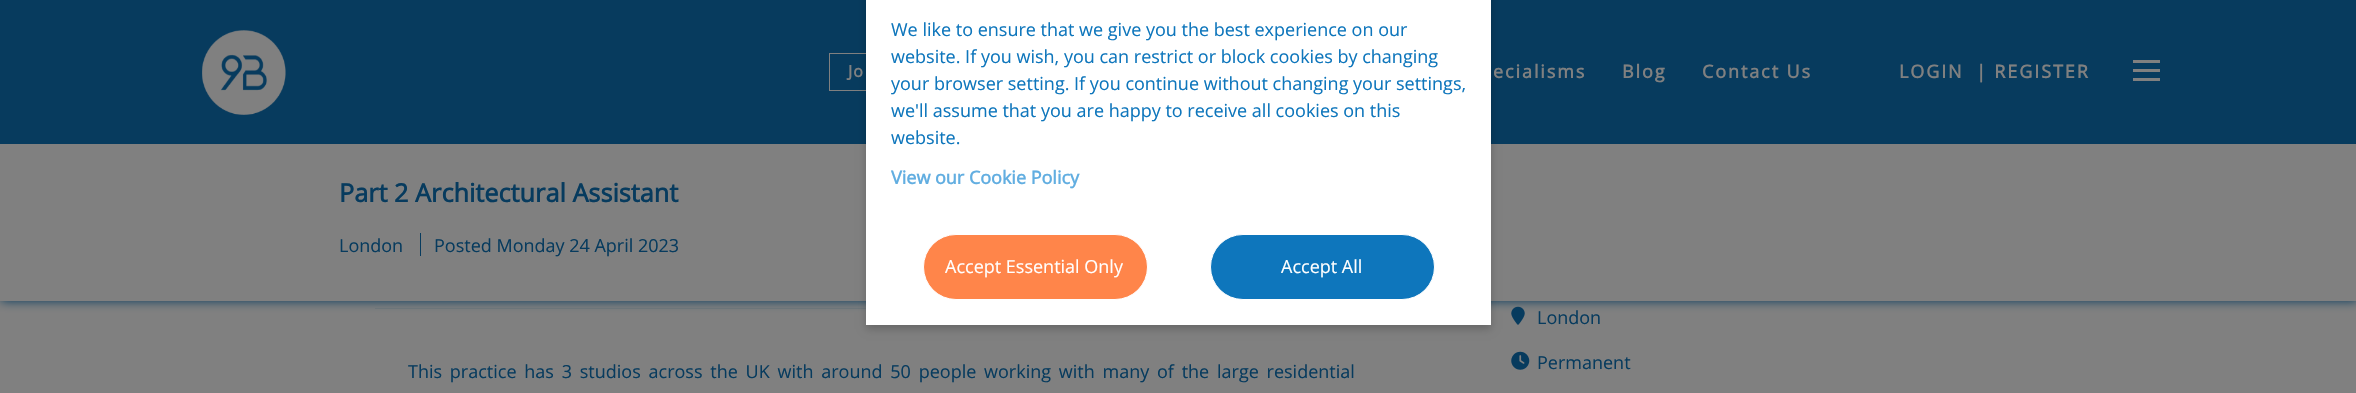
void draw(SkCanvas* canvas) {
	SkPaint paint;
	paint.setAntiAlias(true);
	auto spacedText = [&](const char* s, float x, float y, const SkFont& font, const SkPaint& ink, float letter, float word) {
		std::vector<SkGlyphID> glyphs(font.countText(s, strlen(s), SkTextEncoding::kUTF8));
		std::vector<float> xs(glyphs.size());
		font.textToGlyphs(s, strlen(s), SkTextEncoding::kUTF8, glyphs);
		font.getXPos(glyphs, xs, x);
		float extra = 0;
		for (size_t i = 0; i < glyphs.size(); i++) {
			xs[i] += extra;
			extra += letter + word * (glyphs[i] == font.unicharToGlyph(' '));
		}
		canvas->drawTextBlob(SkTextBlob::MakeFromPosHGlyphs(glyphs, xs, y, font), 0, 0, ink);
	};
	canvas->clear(0xff808080);
	canvas->drawImageRect(SkImages::DeferredFromEncodedData(SkData::MakeFromFileName("img2.png")), SkRect::MakeXYWH(1511, 306, 14, 19), SkSamplingOptions());
	paint.setColor(0xff74797c);
	canvas->drawRect(SkRect::MakeXYWH(375, 308, 491, 1), paint);
	paint.setColor(0xff073b5e);
	paint.setMaskFilter(SkMaskFilter::MakeBlur(kNormal_SkBlurStyle, 5));
	canvas->drawRect(SkRect::MakeXYWH(1, 138, 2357, 163), paint);
	paint.setMaskFilter(nullptr);
	canvas->drawRect(SkRect::MakeXYWH(0, 0, 2356, 144), paint);
	paint.setStroke(true);
	paint.setStrokeWidth(1);
	paint.setColor(0xff808080);
	canvas->drawRect(SkRect::MakeXYWH(829.5, 53.5, 164, 37), paint);
	paint.setStroke(false);
	canvas->drawRect(SkRect::MakeXYWH(0, 144, 2356, 157), paint);
	paint.setColor(0x33000000);
	paint.setMaskFilter(SkMaskFilter::MakeBlur(kNormal_SkBlurStyle, 4));
	canvas->drawRect(SkRect::MakeXYWH(866, -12, 625, 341), paint);
	paint.setMaskFilter(nullptr);
	paint.setColor(0xffffffff);
	canvas->drawRect(SkRect::MakeXYWH(866, 0, 625, 325), paint);
	SkFont f1(fontMgr->matchFamilyStyle("Open Sans", SkFontStyle::Normal()), 18);
	f1.setSubpixel(true);
	paint.setColor(0xff0e76bc);
	canvas->drawString("We like to ensure that we give you the best experience on our", 891, 36, f1, paint);
	canvas->drawString("website. If you wish, you can restrict or block cookies by changing", 891, 63, f1, paint);
	canvas->drawString("your browser setting. If you continue without changing your settings,", 891, 90, f1, paint);
	canvas->drawString("we'll assume that you are happy to receive all cookies on this", 891, 117, f1, paint);
	canvas->drawString("website.", 891, 144, f1, paint);
	SkFont f2(fontMgr->matchFamilyStyle("Open Sans", SkFontStyle::Bold()), 18);
	f2.setSubpixel(true);
	paint.setColor(0xff62aee1);
	canvas->drawString("View our Cookie Policy", 891, 184, f2, paint);
	paint.setColor(0xffff854a);
	canvas->drawRoundRect(SkRect::MakeXYWH(923.5, 234.5, 224, 65), 32.5, 32.5, paint);
	paint.setStroke(true);
	paint.setColor(0xffffffff);
	canvas->drawRoundRect(SkRect::MakeXYWH(923.5, 234.5, 224, 65), 32.5, 32.5, paint);
	paint.setStroke(false);
	canvas->drawString("Accept Essential Only", 945, 273, f1, paint);
	paint.setColor(0xff0e76bc);
	canvas->drawRoundRect(SkRect::MakeXYWH(1210.5, 234.5, 224, 65), 32.5, 32.5, paint);
	paint.setStroke(true);
	paint.setColor(0xffffffff);
	canvas->drawRoundRect(SkRect::MakeXYWH(1210.5, 234.5, 224, 65), 32.5, 32.5, paint);
	paint.setStroke(false);
	canvas->drawString("Accept All", 1281, 273, f1, paint);
	canvas->drawImageRect(SkImages::DeferredFromEncodedData(SkData::MakeFromFileName("img1.png")), SkRect::MakeXYWH(202, 30, 84, 85), SkSamplingOptions());
	SkFont f3(fontMgr->matchFamilyStyle("Open Sans", SkFontStyle::Bold()), 16);
	f3.setSubpixel(true);
	paint.setColor(0xff808080);
	spacedText("Jo", 848, 77, f3, paint, 1, 0);
	spacedText("ecialisms", 1493, 78, f2, paint, 1.9, 0);
	spacedText("Blog", 1622, 78, f2, paint, 1.9, 0);
	spacedText("Contact Us", 1702, 78, f2, paint, 1.9, 0);
	spacedText("LOGIN", 1899, 78, f2, paint, 1.9, 0);
	spacedText("| REGISTER", 1976, 78, f2, paint, 1.9, 0);
	canvas->drawRect(SkRect::MakeXYWH(2133, 69, 27, 3), paint);
	canvas->drawRect(SkRect::MakeXYWH(2133, 60, 27, 3), paint);
	canvas->drawRect(SkRect::MakeXYWH(2133, 78, 27, 3), paint);
	SkFont f4(fontMgr->matchFamilyStyle("Open Sans", SkFontStyle::Bold()), 25.25);
	f4.setSubpixel(true);
	paint.setColor(0xff073b5e);
	canvas->drawString("Part 2 Architectural Assistant", 339, 202, f4, paint);
	canvas->drawString("London", 339, 252, f1, paint);
	canvas->drawRect(SkRect::MakeXYWH(420, 233, 1, 23), paint);
	canvas->drawString("Posted Monday 24 April 2023", 434, 252, f1, paint);
	canvas->drawString("London", 1537, 324, f1, paint);
	canvas->drawImageRect(SkImages::DeferredFromEncodedData(SkData::MakeFromFileName("img3.png")), SkRect::MakeXYWH(1511, 351, 19, 19), SkSamplingOptions());
	canvas->drawString("Permanent", 1537, 369, f1, paint);
	spacedText("This practice has 3 studios across the UK with around 50 people working with many of the large residential", 408, 378, f1, paint, 0, 3.1);
}
